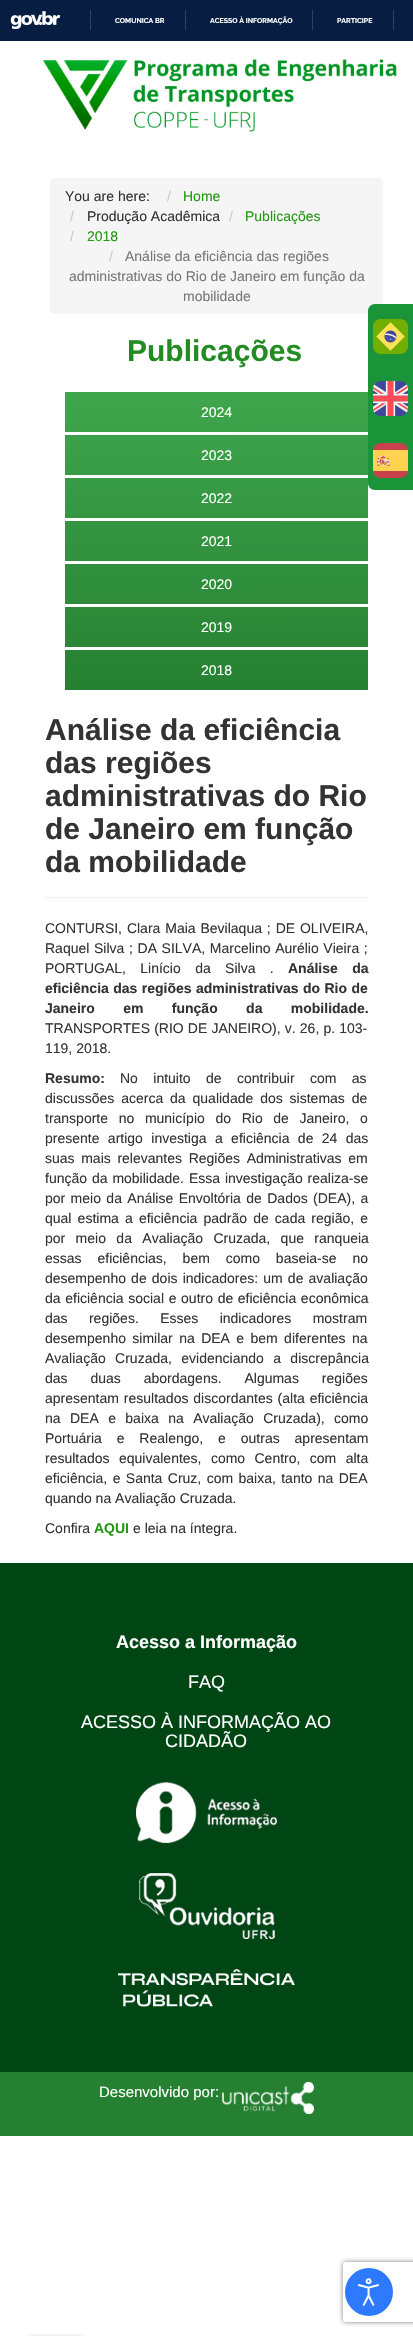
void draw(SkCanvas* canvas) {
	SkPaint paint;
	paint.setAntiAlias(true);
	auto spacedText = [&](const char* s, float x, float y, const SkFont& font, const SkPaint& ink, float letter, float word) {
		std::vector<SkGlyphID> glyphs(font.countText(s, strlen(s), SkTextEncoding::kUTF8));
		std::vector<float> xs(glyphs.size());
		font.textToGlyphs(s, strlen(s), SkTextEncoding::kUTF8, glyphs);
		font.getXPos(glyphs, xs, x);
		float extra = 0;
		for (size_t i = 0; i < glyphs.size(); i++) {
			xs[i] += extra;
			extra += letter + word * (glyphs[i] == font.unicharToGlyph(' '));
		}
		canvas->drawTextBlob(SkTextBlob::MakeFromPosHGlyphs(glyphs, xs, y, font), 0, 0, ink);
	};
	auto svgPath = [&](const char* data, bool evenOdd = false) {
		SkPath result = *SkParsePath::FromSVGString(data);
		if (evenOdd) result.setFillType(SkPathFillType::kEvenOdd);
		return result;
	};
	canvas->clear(0xffffffff);
	paint.setColor(0xff071d41);
	canvas->drawRect(SkRect::MakeXYWH(0, 0, 413, 41), paint);
	canvas->drawImageRect(SkImages::DeferredFromEncodedData(SkData::MakeFromFileName("img1.png")), SkRect::MakeXYWH(10, 11, 50, 18), SkSamplingOptions());
	paint.setColor(0xff32425b);
	canvas->drawRect(SkRect::MakeXYWH(90, 10, 1, 20), paint);
	SkFont f1(fontMgr->matchFamilyStyle("Raleway", SkFontStyle::Bold()), 7);
	f1.setSubpixel(true);
	paint.setColor(0xffffffff);
	canvas->drawString("COMUNICA BR", 115, 23, f1, paint);
	paint.setColor(0xff32425b);
	canvas->drawRect(SkRect::MakeXYWH(185, 10, 1, 20), paint);
	paint.setColor(0xffffffff);
	canvas->drawString("ACESSO À INFORMAÇÃO", 210, 23, f1, paint);
	paint.setColor(0xff32425b);
	canvas->drawRect(SkRect::MakeXYWH(312, 10, 1, 20), paint);
	paint.setColor(0xffffffff);
	canvas->drawString("PARTICIPE", 337, 23, f1, paint);
	paint.setColor(0xff32425b);
	canvas->drawRect(SkRect::MakeXYWH(393, 10, 1, 20), paint);
	canvas->drawImageRect(SkImages::DeferredFromEncodedData(SkData::MakeFromFileName("img2.png")), SkRect::MakeXYWH(43, 59, 354, 73), SkSamplingOptions());
	paint.setColor(0xfff5f5f5);
	canvas->drawRoundRect(SkRect::MakeXYWH(50, 178, 333, 136), 4, 4, paint);
	SkFont f2(fontMgr->matchFamilyStyle("Liberation Sans", SkFontStyle::Normal()), 14);
	f2.setSubpixel(true);
	paint.setColor(0xff333333);
	canvas->drawString("You are here:", 65, 201, f2, paint);
	paint.setColor(0xffcccccc);
	canvas->drawString("/", 167, 201, f2, paint);
	paint.setColor(0xff219712);
	canvas->drawString("Home", 183, 201, f2, paint);
	paint.setColor(0xffcccccc);
	canvas->drawString("/", 70, 221, f2, paint);
	paint.setColor(0xff333333);
	canvas->drawString("Produção Acadêmica", 87, 221, f2, paint);
	paint.setColor(0xffcccccc);
	canvas->drawString("/", 229, 221, f2, paint);
	paint.setColor(0xff219712);
	canvas->drawString("Publicações", 245, 221, f2, paint);
	paint.setColor(0xffcccccc);
	canvas->drawString("/", 70, 241, f2, paint);
	paint.setColor(0xff219712);
	canvas->drawString("2018", 87, 241, f2, paint);
	paint.setColor(0xffcccccc);
	canvas->drawString("/", 109, 261, f2, paint);
	paint.setColor(0xff777777);
	canvas->drawString("Análise da eficiência das regiões", 125, 261, f2, paint);
	canvas->drawString("administrativas do Rio de Janeiro em função da", 69, 281, f2, paint);
	canvas->drawString("mobilidade", 183, 301, f2, paint);
	SkFont f3(fontMgr->matchFamilyStyle("Liberation Sans", SkFontStyle::Bold()), 30);
	f3.setSubpixel(true);
	paint.setColor(0xff228b22);
	canvas->drawString("Publicações", 127, 361, f3, paint);
	{
		const SkColor colors[] = {0xff3fa64d, 0xff268032};
		const float stops[] = {0, 1};
		const SkPoint ends[] = {{216, 392}, {217, 693}};
		paint.setShader(SkGradientShader::MakeLinear(ends, colors, stops, 2, SkTileMode::kClamp));
		paint.setAlpha(255);
	}
	canvas->drawRect(SkRect::MakeXYWH(65, 392, 303, 298), paint);
	paint.setShader(nullptr);
	paint.setColor(0xffffffff);
	canvas->drawRect(SkRect::MakeXYWH(65, 432, 303, 3), paint);
	canvas->drawString("2024", 201, 417, f2, paint);
	canvas->drawRect(SkRect::MakeXYWH(65, 475, 303, 3), paint);
	canvas->drawString("2023", 201, 460, f2, paint);
	canvas->drawRect(SkRect::MakeXYWH(65, 518, 303, 3), paint);
	canvas->drawString("2022", 201, 503, f2, paint);
	canvas->drawRect(SkRect::MakeXYWH(65, 561, 303, 3), paint);
	canvas->drawString("2021", 201, 546, f2, paint);
	canvas->drawRect(SkRect::MakeXYWH(65, 604, 303, 3), paint);
	canvas->drawString("2020", 201, 589, f2, paint);
	canvas->drawRect(SkRect::MakeXYWH(65, 647, 303, 3), paint);
	canvas->drawString("2019", 201, 632, f2, paint);
	canvas->drawString("2018", 201, 675, f2, paint);
	paint.setColor(0xffeeeeee);
	canvas->drawRect(SkRect::MakeXYWH(45, 897, 323, 1), paint);
	paint.setColor(0xff333333);
	canvas->drawString("Análise da eficiência", 45, 740, f3, paint);
	canvas->drawString("das regiões", 45, 773, f3, paint);
	canvas->drawString("administrativas do Rio", 45, 806, f3, paint);
	canvas->drawString("de Janeiro em função", 45, 839, f3, paint);
	canvas->drawString("da mobilidade", 45, 872, f3, paint);
	spacedText("CONTURSI, Clara Maia Bevilaqua ; DE OLIVEIRA,", 45, 933, f2, paint, 0, 1);
	spacedText("Raquel Silva ; DA SILVA, Marcelino Aurélio Vieira ;", 45, 953, f2, paint, 0, 0.75);
	spacedText("PORTUGAL, Linício da Silva .", 45, 973, f2, paint, 0, 10.5);
	SkFont f4(fontMgr->matchFamilyStyle("Liberation Sans", SkFontStyle::Bold()), 14);
	f4.setSubpixel(true);
	spacedText("Análise da", 288, 973, f4, paint, 0, 10.5);
	spacedText("eficiência das regiões administrativas do Rio de", 45, 993, f4, paint, 0, 0.5);
	spacedText("Janeiro em função da mobilidade.", 45, 1013, f4, paint, 0, 24.5);
	spacedText("TRANSPORTES (RIO DE JANEIRO), v. 26, p. 103-", 45, 1033, f2, paint, 0, 0.25);
	canvas->drawString("119, 2018.", 45, 1053, f2, paint);
	canvas->drawString("Resumo:", 45, 1083, f4, paint);
	spacedText("No intuito de contribuir com as", 120, 1083, f2, paint, 0, 11.5);
	spacedText("discussões acerca da qualidade dos sistemas de", 45, 1103, f2, paint, 0, 3);
	spacedText("transporte no município do Rio de Janeiro, o", 45, 1123, f2, paint, 0, 6.75);
	spacedText("presente artigo investiga a eficiência de 24 das", 45, 1143, f2, paint, 0, 4.5);
	spacedText("suas mais relevantes Regiões Administrativas em", 45, 1163, f2, paint, 0, 2.75);
	spacedText("função da mobilidade. Essa investigação realiza-se", 45, 1183, f2, paint, 0, 1);
	spacedText("por meio da Análise Envoltória de Dados (DEA), a", 45, 1203, f2, paint, 0, 1.5);
	spacedText("qual estima a eficiência padrão de cada região, e", 45, 1223, f2, paint, 0, 2.25);
	spacedText("por meio da Avaliação Cruzada, que ranqueia", 45, 1243, f2, paint, 0, 6.5);
	spacedText("essas eficiências, bem como baseia-se no", 45, 1263, f2, paint, 0, 12);
	spacedText("desempenho de dois indicadores: um de avaliação", 45, 1283, f2, paint, 0, 1.25);
	spacedText("da eficiência social e outro de eficiência econômica", 45, 1303, f2, paint, 0, 0.75);
	spacedText("das regiões. Esses indicadores mostram", 45, 1323, f2, paint, 0, 17.5);
	spacedText("desempenho similar na DEA e bem diferentes na", 45, 1343, f2, paint, 0, 2.5);
	spacedText("Avaliação Cruzada, evidenciando a discrepância", 45, 1363, f2, paint, 0, 5.5);
	spacedText("das duas abordagens. Algumas regiões", 45, 1383, f2, paint, 0, 19);
	spacedText("apresentam resultados discordantes (alta eficiência", 45, 1403, f2, paint, 0, 1);
	spacedText("na DEA e baixa na Avaliação Cruzada), como", 45, 1423, f2, paint, 0, 5.5);
	spacedText("Portuária e Realengo, e outras apresentam", 45, 1443, f2, paint, 0, 11);
	spacedText("resultados equivalentes, como Centro, com alta", 45, 1463, f2, paint, 0, 5.5);
	spacedText("eficiência, e Santa Cruz, com baixa, tanto na DEA", 45, 1483, f2, paint, 0, 1.5);
	canvas->drawString("quando na Avaliação Cruzada.", 45, 1503, f2, paint);
	canvas->drawString("Confira", 45, 1533, f2, paint);
	paint.setColor(0xff219712);
	canvas->drawString("AQUI", 94, 1533, f4, paint);
	paint.setColor(0xff333333);
	canvas->drawString("e leia na íntegra.", 133, 1533, f2, paint);
	paint.setColor(0xff1b9439);
	canvas->drawPath(svgPath("M375 304H413V490H375C371 490 368 487 368 483V311C368 307 371 304 375 304Z"), paint);
	canvas->drawImageRect(SkImages::DeferredFromEncodedData(SkData::MakeFromFileName("img3.png")), SkRect::MakeXYWH(373, 319, 35, 35), SkSamplingOptions());
	canvas->drawImageRect(SkImages::DeferredFromEncodedData(SkData::MakeFromFileName("img4.png")), SkRect::MakeXYWH(373, 381, 35, 35), SkSamplingOptions());
	canvas->drawImageRect(SkImages::DeferredFromEncodedData(SkData::MakeFromFileName("img5.png")), SkRect::MakeXYWH(373, 443, 35, 35), SkSamplingOptions());
	paint.setColor(0xff004614);
	canvas->drawRect(SkRect::MakeXYWH(0, 1563, 413, 509), paint);
	SkFont f5(fontMgr->matchFamilyStyle("Liberation Sans", SkFontStyle::Bold()), 18);
	f5.setSubpixel(true);
	paint.setColor(0xffffffff);
	canvas->drawString("Acesso a Informação", 116, 1648, f5, paint);
	SkFont f6(fontMgr->matchFamilyStyle("Liberation Sans", SkFontStyle::Normal()), 18);
	f6.setSubpixel(true);
	canvas->drawString("FAQ", 188, 1688, f6, paint);
	canvas->drawString("ACESSO À INFORMAÇÃO AO", 81, 1728, f6, paint);
	canvas->drawString("CIDADÃO", 165, 1747, f6, paint);
	canvas->drawImageRect(SkImages::DeferredFromEncodedData(SkData::MakeFromFileName("img6.png")), SkRect::MakeXYWH(136, 1782, 141, 61), SkSamplingOptions());
	canvas->drawImageRect(SkImages::DeferredFromEncodedData(SkData::MakeFromFileName("img7.png")), SkRect::MakeXYWH(139, 1873, 136, 66), SkSamplingOptions());
	canvas->drawImageRect(SkImages::DeferredFromEncodedData(SkData::MakeFromFileName("img8.png")), SkRect::MakeXYWH(118, 1969, 177, 38), SkSamplingOptions());
	paint.setColor(0xff268032);
	canvas->drawRect(SkRect::MakeXYWH(0, 2072, 413, 64), paint);
	SkFont f7(fontMgr->matchFamilyStyle("Liberation Sans", SkFontStyle::Normal()), 15);
	f7.setSubpixel(true);
	paint.setColor(0xffffffff);
	canvas->drawString("Desenvolvido por:", 99, 2097, f7, paint);
	canvas->drawImageRect(SkImages::DeferredFromEncodedData(SkData::MakeFromFileName("img9.png")), SkRect::MakeXYWH(222, 2082, 92, 32), SkSamplingOptions());
	canvas->save();
	canvas->clipPath(svgPath("M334 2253H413V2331H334ZM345 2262H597C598 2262 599 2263 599 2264V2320C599 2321 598 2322 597 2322H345C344 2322 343 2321 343 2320V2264C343 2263 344 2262 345 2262Z", true), true);
	paint.setColor(0xff808080);
	paint.setMaskFilter(SkMaskFilter::MakeBlur(kNormal_SkBlurStyle, 2.5));
	canvas->drawRoundRect(SkRect::MakeXYWH(343, 2262, 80, 60), 2, 2, paint);
	paint.setMaskFilter(nullptr);
	canvas->restore();
	paint.setColor(0xff2d79ff);
	canvas->drawCircle(369, 2292, 24, paint);
	canvas->drawImageRect(SkImages::DeferredFromEncodedData(SkData::MakeFromFileName("img10.png")), SkRect::MakeXYWH(358, 2278, 21, 28), SkSamplingOptions());
	paint.setColor(0x66000000);
	paint.setMaskFilter(SkMaskFilter::MakeBlur(kNormal_SkBlurStyle, 2.5));
	canvas->drawRoundRect(SkRect::MakeXYWH(23, 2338, 66, 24), 18, 18, paint);
	paint.setMaskFilter(nullptr);
}
